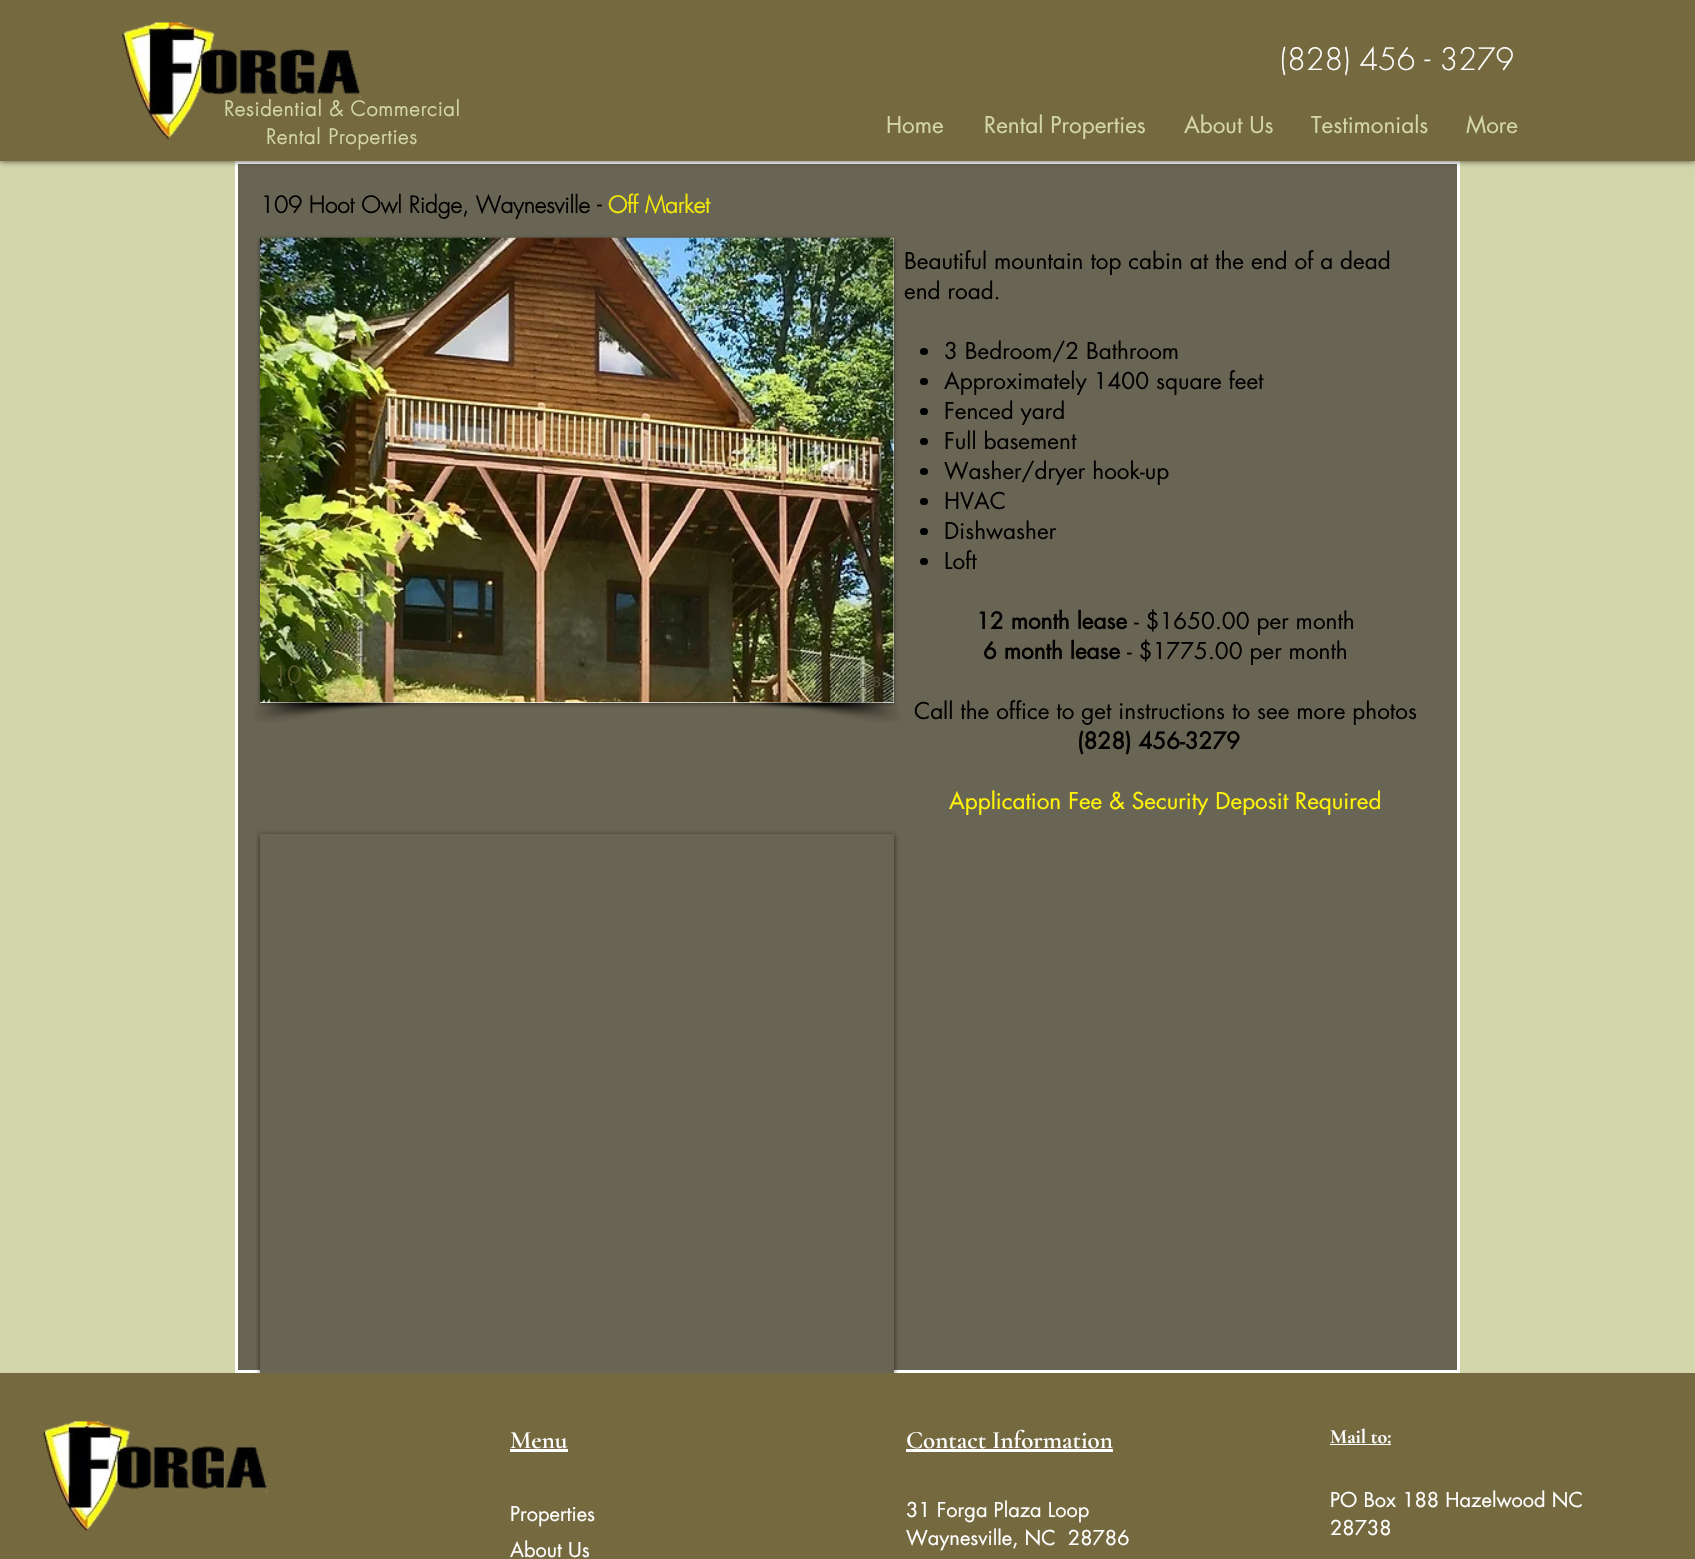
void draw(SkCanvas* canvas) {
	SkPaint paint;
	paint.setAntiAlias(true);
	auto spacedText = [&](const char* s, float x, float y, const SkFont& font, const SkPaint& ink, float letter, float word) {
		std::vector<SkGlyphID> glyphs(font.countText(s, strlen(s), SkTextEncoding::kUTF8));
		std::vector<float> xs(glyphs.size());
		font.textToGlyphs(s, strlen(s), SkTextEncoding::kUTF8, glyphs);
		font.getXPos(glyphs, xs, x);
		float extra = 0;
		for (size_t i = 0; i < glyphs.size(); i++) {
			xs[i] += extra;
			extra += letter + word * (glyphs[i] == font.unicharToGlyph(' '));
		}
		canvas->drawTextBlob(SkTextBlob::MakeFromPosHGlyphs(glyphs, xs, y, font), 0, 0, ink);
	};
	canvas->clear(0xffd3d6ab);
	paint.setColor(0xff696554);
	canvas->drawRect(SkRect::MakeXYWH(236.5, 162.5, 1222, 1209), paint);
	paint.setStroke(true);
	paint.setStrokeWidth(3);
	paint.setColor(0xffffffff);
	canvas->drawRect(SkRect::MakeXYWH(236.5, 162.5, 1222, 1209), paint);
	paint.setStroke(false);
	paint.setColor(0xb3000000);
	paint.setMaskFilter(SkMaskFilter::MakeBlur(kNormal_SkBlurStyle, 3));
	canvas->drawRect(SkRect::MakeXYWH(0, 0, 1695, 161), paint);
	paint.setMaskFilter(nullptr);
	paint.setColor(0xff75693f);
	canvas->drawRect(SkRect::MakeXYWH(0, 0, 1695, 161), paint);
	canvas->drawImageRect(SkImages::DeferredFromEncodedData(SkData::MakeFromFileName("img1.png")), SkRect::MakeXYWH(121, 22, 241, 117), SkSamplingOptions());
	SkFont f1(fontMgr->matchFamilyStyle("futura", SkFontStyle::Bold()), 20);
	f1.setSubpixel(true);
	paint.setColor(0xffd3d6ab);
	spacedText("Residential & Commercial", 224, 116, f1, paint, 1, 0);
	spacedText("Rental Properties", 266, 144, f1, paint, 1, 0);
	SkFont f2(fontMgr->matchFamilyStyle("futura", SkFontStyle(300, SkFontStyle::kNormal_Width, SkFontStyle::kUpright_Slant)), 30);
	f2.setSubpixel(true);
	paint.setColor(0xffffffff);
	canvas->drawString("(828) 456 - 3279", 1280, 70, f2, paint);
	SkFont f3(fontMgr->matchFamilyStyle("futura", SkFontStyle::Normal()), 22.5);
	f3.setSubpixel(true);
	paint.setColor(0xffd3d6ab);
	canvas->drawString("Home", 886, 133, f3, paint);
	canvas->drawString("Rental Properties", 984, 133, f3, paint);
	canvas->drawString("About Us", 1184, 133, f3, paint);
	canvas->drawString("Testimonials", 1311, 133, f3, paint);
	canvas->drawString("More", 1466, 133, f3, paint);
	SkFont f4(fontMgr->matchFamilyStyle("futura", SkFontStyle::Bold()), 22.5);
	f4.setSubpixel(true);
	paint.setColor(0xff000000);
	canvas->drawString("109 Hoot Owl Ridge, Waynesville -", 260, 213, f4, paint);
	paint.setColor(0xfff2e70a);
	canvas->drawString("Off Market", 608, 213, f4, paint);
	paint.setColor(0x80000000);
	paint.setMaskFilter(SkMaskFilter::MakeBlur(kNormal_SkBlurStyle, 2));
	canvas->drawRect(SkRect::MakeXYWH(260, 239, 634, 465), paint);
	paint.setMaskFilter(nullptr);
	paint.setColor(0xffffffff);
	canvas->drawRect(SkRect::MakeXYWH(260, 238, 634, 465), paint);
	canvas->drawImageRect(SkImages::DeferredFromEncodedData(SkData::MakeFromFileName("img3.png")), SkRect::MakeXYWH(254, 702, 174, 21), SkSamplingOptions());
	canvas->drawImageRect(SkImages::DeferredFromEncodedData(SkData::MakeFromFileName("img2.png")), SkRect::MakeXYWH(260, 237, 634, 466), SkSamplingOptions());
	paint.setColor(0xff575829);
	canvas->drawString("10", 273, 683, f4, paint);
	SkFont f5(fontMgr->matchFamilyStyle("Liberation Sans", SkFontStyle::Normal()), 15);
	f5.setSubpixel(true);
	paint.setColor(0xff504d38);
	canvas->drawString("1/8", 860, 687, f5, paint);
	canvas->drawImageRect(SkImages::DeferredFromEncodedData(SkData::MakeFromFileName("img4.png")), SkRect::MakeXYWH(726, 702, 174, 21), SkSamplingOptions());
	paint.setColor(0xff000000);
	canvas->drawString("Beautiful mountain top cabin at the end of a dead", 904, 269, f3, paint);
	canvas->drawString("end road.", 904, 299, f3, paint);
	canvas->drawRoundRect(SkRect::MakeXYWH(920, 348, 8, 7), 3.5, 3.5, paint);
	canvas->drawString("3 Bedroom/2 Bathroom", 944, 359, f3, paint);
	canvas->drawRoundRect(SkRect::MakeXYWH(920, 378, 8, 7), 3.5, 3.5, paint);
	canvas->drawString("Approximately 1400 square feet", 944, 389, f3, paint);
	canvas->drawRoundRect(SkRect::MakeXYWH(920, 408, 8, 7), 3.5, 3.5, paint);
	canvas->drawString("Fenced yard", 944, 419, f3, paint);
	canvas->drawRoundRect(SkRect::MakeXYWH(920, 438, 8, 7), 3.5, 3.5, paint);
	canvas->drawString("Full basement", 944, 449, f3, paint);
	canvas->drawRoundRect(SkRect::MakeXYWH(920, 468, 8, 7), 3.5, 3.5, paint);
	canvas->drawString("Washer/dryer hook-up", 944, 479, f3, paint);
	canvas->drawRoundRect(SkRect::MakeXYWH(920, 498, 8, 7), 3.5, 3.5, paint);
	canvas->drawString("HVAC", 944, 509, f3, paint);
	canvas->drawRoundRect(SkRect::MakeXYWH(920, 528, 8, 7), 3.5, 3.5, paint);
	canvas->drawString("Dishwasher", 944, 539, f3, paint);
	canvas->drawRoundRect(SkRect::MakeXYWH(920, 558, 8, 7), 3.5, 3.5, paint);
	canvas->drawString("Loft", 944, 569, f3, paint);
	SkFont f6(fontMgr->matchFamilyStyle("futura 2", SkFontStyle::Bold()), 22.5);
	f6.setSubpixel(true);
	canvas->drawString("12 month lease", 976, 629, f6, paint);
	canvas->drawString("- $1650.00 per month", 1134, 629, f3, paint);
	canvas->drawString("6 month lease", 983, 659, f6, paint);
	canvas->drawString("- $1775.00 per month", 1127, 659, f3, paint);
	canvas->drawString("Call the office to get instructions to see more photos", 914, 719, f3, paint);
	canvas->drawString("(828) 456-3279", 1077, 749, f6, paint);
	paint.setColor(0xfffff30a);
	canvas->drawString("Application Fee & Security Deposit Required", 949, 809, f3, paint);
	paint.setColor(0x99000000);
	paint.setMaskFilter(SkMaskFilter::MakeBlur(kNormal_SkBlurStyle, 2.5));
	canvas->drawRect(SkRect::MakeXYWH(260, 835, 634, 539), paint);
	paint.setMaskFilter(nullptr);
	paint.setColor(0xff696554);
	canvas->drawRect(SkRect::MakeXYWH(260, 834, 634, 539), paint);
	paint.setColor(0xff75693f);
	canvas->drawRect(SkRect::MakeXYWH(0, 1373, 1695, 186), paint);
	canvas->drawImageRect(SkImages::DeferredFromEncodedData(SkData::MakeFromFileName("img5.png")), SkRect::MakeXYWH(43, 1421, 225, 110), SkSamplingOptions());
	SkFont f7(fontMgr->matchFamilyStyle("Cormorant Garamond", SkFontStyle(600, SkFontStyle::kNormal_Width, SkFontStyle::kUpright_Slant)), 25);
	f7.setSubpixel(true);
	paint.setColor(0xffffffff);
	canvas->drawString("Menu", 510, 1448, f7, paint);
	canvas->drawRect(SkRect::MakeXYWH(510, 1449, 58, 3), paint);
	SkFont f8(fontMgr->matchFamilyStyle("futura", SkFontStyle::Normal()), 20);
	f8.setSubpixel(true);
	canvas->drawString("Properties", 510, 1521, f8, paint);
	canvas->drawString("About Us", 510, 1557, f8, paint);
	canvas->drawString("Contact Information", 906, 1448, f7, paint);
	canvas->drawRect(SkRect::MakeXYWH(906, 1449, 207, 3), paint);
	canvas->drawString("31 Forga Plaza Loop", 906, 1517, f8, paint);
	canvas->drawString("Waynesville, NC  28786", 906, 1545, f8, paint);
	SkFont f9(fontMgr->matchFamilyStyle("Cormorant Garamond", SkFontStyle::Bold()), 20);
	f9.setSubpixel(true);
	canvas->drawString("Mail to:", 1330, 1443, f9, paint);
	canvas->drawRect(SkRect::MakeXYWH(1330, 1444, 61, 1), paint);
	canvas->drawString("PO Box 188 Hazelwood NC", 1330, 1507, f8, paint);
	canvas->drawString("28738", 1330, 1535, f8, paint);
}
